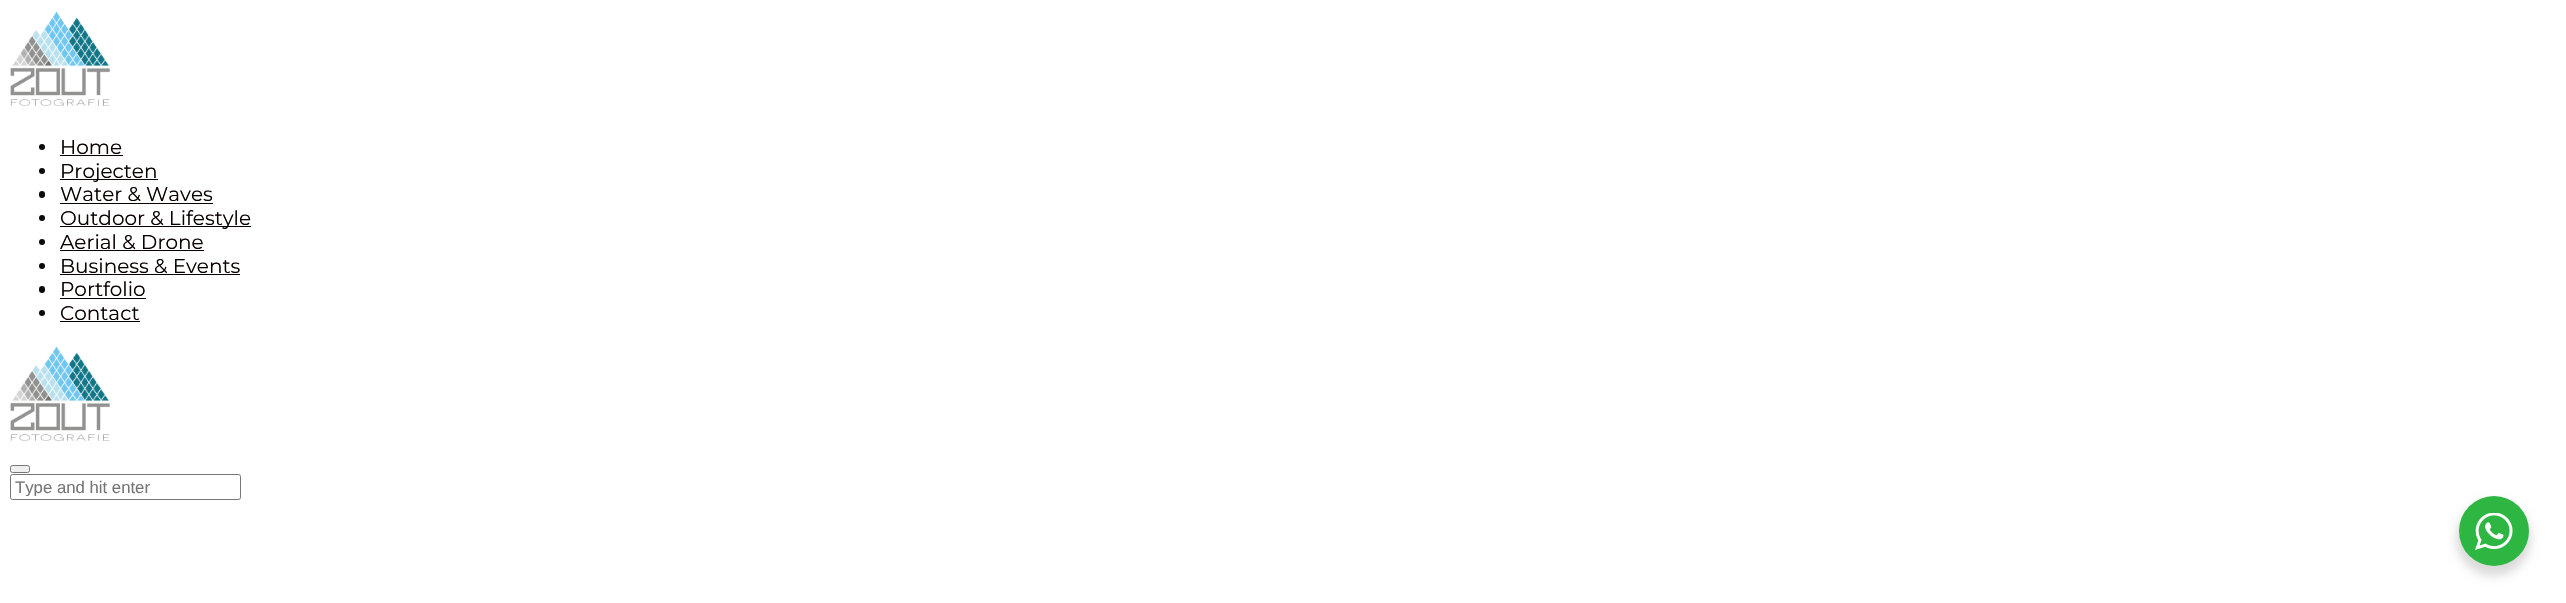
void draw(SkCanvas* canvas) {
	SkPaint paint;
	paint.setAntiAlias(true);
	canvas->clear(0xffffffff);
	canvas->drawImageRect(SkImages::DeferredFromEncodedData(SkData::MakeFromFileName("img1.png")), SkRect::MakeXYWH(10, 11, 100, 95), SkSamplingOptions());
	paint.setColor(0xff0a0a0a);
	canvas->drawCircle(42, 147, 3, paint);
	SkFont f1(fontMgr->matchFamilyStyle("Montserrat", SkFontStyle::Normal()), 20);
	f1.setSubpixel(true);
	paint.setColor(0xff0a0000);
	canvas->drawString("Home", 60, 154, f1, paint);
	canvas->drawRect(SkRect::MakeXYWH(60, 155, 63, 1), paint);
	paint.setColor(0xff0a0a0a);
	canvas->drawCircle(42, 171, 3, paint);
	paint.setColor(0xff0a0000);
	canvas->drawRect(SkRect::MakeXYWH(60, 179, 98, 1), paint);
	canvas->drawString("Projecten", 60, 178, f1, paint);
	paint.setColor(0xff0a0a0a);
	canvas->drawRoundRect(SkRect::MakeXYWH(39, 191, 6, 7), 3, 3, paint);
	paint.setColor(0xff0a0000);
	canvas->drawString("Water & Waves", 60, 201, f1, paint);
	canvas->drawRect(SkRect::MakeXYWH(60, 203, 153, 1), paint);
	paint.setColor(0xff0a0a0a);
	canvas->drawCircle(42, 218, 3, paint);
	paint.setColor(0xff0a0000);
	canvas->drawRect(SkRect::MakeXYWH(60, 226, 191, 1), paint);
	canvas->drawString("Outdoor & Lifestyle", 60, 225, f1, paint);
	paint.setColor(0xff0a0a0a);
	canvas->drawCircle(42, 242, 3, paint);
	paint.setColor(0xff0a0000);
	canvas->drawString("Aerial & Drone", 60, 249, f1, paint);
	canvas->drawRect(SkRect::MakeXYWH(60, 250, 144, 1), paint);
	paint.setColor(0xff0a0a0a);
	canvas->drawCircle(42, 266, 3, paint);
	paint.setColor(0xff0a0000);
	canvas->drawString("Business & Events", 60, 273, f1, paint);
	canvas->drawRect(SkRect::MakeXYWH(60, 274, 180, 1), paint);
	paint.setColor(0xff0a0a0a);
	canvas->drawRoundRect(SkRect::MakeXYWH(39, 286, 6, 7), 3, 3, paint);
	paint.setColor(0xff0a0000);
	canvas->drawString("Portfolio", 60, 296, f1, paint);
	canvas->drawRect(SkRect::MakeXYWH(60, 298, 86, 1), paint);
	paint.setColor(0xff0a0a0a);
	canvas->drawCircle(42, 313, 3, paint);
	paint.setColor(0xff0a0000);
	canvas->drawString("Contact", 60, 320, f1, paint);
	canvas->drawRect(SkRect::MakeXYWH(60, 321, 80, 1), paint);
	canvas->drawImageRect(SkImages::DeferredFromEncodedData(SkData::MakeFromFileName("img1.png")), SkRect::MakeXYWH(10, 346, 100, 95), SkSamplingOptions());
	paint.setColor(0xffefefef);
	canvas->drawRoundRect(SkRect::MakeXYWH(10.5, 465.5, 19, 7), 2, 2, paint);
	paint.setStroke(true);
	paint.setStrokeWidth(1);
	paint.setColor(0xff767676);
	canvas->drawRoundRect(SkRect::MakeXYWH(10.5, 465.5, 19, 7), 2, 2, paint);
	canvas->drawRoundRect(SkRect::MakeXYWH(10.5, 474.5, 230, 25), 2, 2, paint);
	canvas->save();
	canvas->clipRect(SkRect::MakeXYWH(15, 478, 221, 18));
	SkFont f2(fontMgr->matchFamilyStyle("Liberation Sans", SkFontStyle::Normal()), 16.75);
	f2.setSubpixel(true);
	paint.setStroke(false);
	paint.setColor(0xff757575);
	canvas->drawString("Type and hit enter", 15, 493, f2, paint);
	canvas->restore();
	paint.setColor(0x24000000);
	paint.setMaskFilter(SkMaskFilter::MakeBlur(kNormal_SkBlurStyle, 5));
	canvas->drawRoundRect(SkRect::MakeXYWH(2456, 501, 75, 75), 37.5, 37.5, paint);
	paint.setMaskFilter(nullptr);
	paint.setColor(0xff2db742);
	canvas->drawCircle(2494, 531, 35, paint);
	canvas->drawImageRect(SkImages::DeferredFromEncodedData(SkData::MakeFromFileName("img2.png")), SkRect::MakeXYWH(2475, 513, 38, 37), SkSamplingOptions());
}
